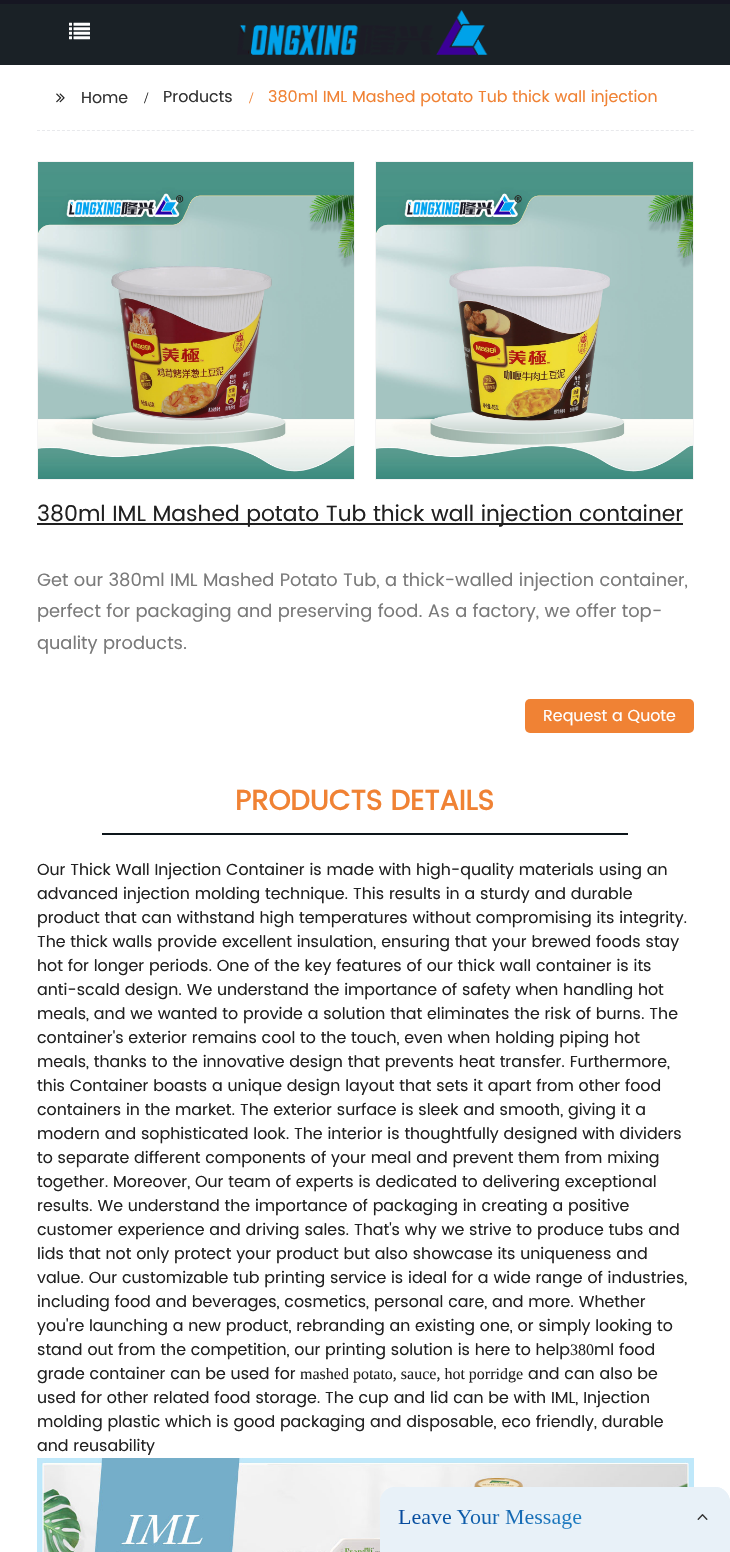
void draw(SkCanvas* canvas) {
	SkPaint paint;
	paint.setAntiAlias(true);
	auto svgPath = [&](const char* data, bool evenOdd = false) {
		SkPath result = *SkParsePath::FromSVGString(data);
		if (evenOdd) result.setFillType(SkPathFillType::kEvenOdd);
		return result;
	};
	canvas->clear(0xff1a2126);
	paint.setColor(0xff161622);
	canvas->drawRect(SkRect::MakeXYWH(0, 0, 730, 4), paint);
	canvas->drawImageRect(SkImages::DeferredFromEncodedData(SkData::MakeFromFileName("img1.png")), SkRect::MakeXYWH(69, 22, 21, 18), SkSamplingOptions());
	canvas->drawImageRect(SkImages::DeferredFromEncodedData(SkData::MakeFromFileName("img2.png")), SkRect::MakeXYWH(237, 10, 251, 45), SkSamplingOptions());
	paint.setColor(0xffffffff);
	canvas->drawRect(SkRect::MakeXYWH(0, 65, 730, 1487), paint);
	paint.setStroke(true);
	paint.setStrokeWidth(1);
	paint.setColor(0xffe8e9ec);
	paint.setPathEffect(SkDashPathEffect::Make({{3, 1.99f}}, 0));
	canvas->drawPath(svgPath("M37 130.5H694"), paint);
	paint.setPathEffect(nullptr);
	canvas->drawImageRect(SkImages::DeferredFromEncodedData(SkData::MakeFromFileName("img3.png")), SkRect::MakeXYWH(56, 93, 9, 10), SkSamplingOptions());
	SkFont f1(fontMgr->matchFamilyStyle("Poppins", SkFontStyle::Normal()), 16);
	f1.setSubpixel(true);
	paint.setStroke(false);
	paint.setColor(0xff333333);
	canvas->drawString("Home", 81, 103, f1, paint);
	SkFont f2(fontMgr->matchFamilyStyle("Liberation Serif", SkFontStyle::Normal()), 16);
	f2.setSubpixel(true);
	paint.setColor(0xff212121);
	canvas->drawString("/", 144, 103, f2, paint);
	paint.setColor(0xff333333);
	canvas->drawString("Products", 163, 102, f1, paint);
	paint.setColor(0xfff08234);
	canvas->drawString("/", 249, 103, f2, paint);
	canvas->drawString("380ml IML Mashed potato Tub thick wall injection", 268, 102, f1, paint);
	paint.setStroke(true);
	paint.setColor(0xfff5f5f5);
	canvas->drawRect(SkRect::MakeXYWH(37.5, 161.5, 317, 318), paint);
	canvas->drawImageRect(SkImages::DeferredFromEncodedData(SkData::MakeFromFileName("img4.png")), SkRect::MakeXYWH(38, 162, 316, 317), SkSamplingOptions());
	canvas->drawRect(SkRect::MakeXYWH(375.5, 161.5, 318, 318), paint);
	canvas->drawImageRect(SkImages::DeferredFromEncodedData(SkData::MakeFromFileName("img5.png")), SkRect::MakeXYWH(376, 162, 317, 317), SkSamplingOptions());
	paint.setStroke(false);
	paint.setColor(0xff212121);
	canvas->drawRect(SkRect::MakeXYWH(37, 523, 646, 2), paint);
	SkFont f3(fontMgr->matchFamilyStyle("Poppins", SkFontStyle::Normal()), 22);
	f3.setSubpixel(true);
	canvas->drawString("380ml IML Mashed potato Tub thick wall injection container", 37, 521, f3, paint);
	SkFont f4(fontMgr->matchFamilyStyle("Poppins", SkFontStyle::Normal()), 18);
	f4.setSubpixel(true);
	paint.setColor(0xff7a7a7a);
	canvas->drawString("Get our 380ml IML Mashed Potato Tub, a thick-walled injection container,", 37, 586, f4, paint);
	canvas->drawString("perfect for packaging and preserving food. As a factory, we offer top-", 37, 617, f4, paint);
	canvas->drawString("quality products.", 37, 649, f4, paint);
	paint.setColor(0xfff08234);
	canvas->drawRoundRect(SkRect::MakeXYWH(525, 699, 169, 34), 5, 5, paint);
	paint.setColor(0xffffffff);
	canvas->drawString("Request a Quote", 543, 721, f1, paint);
	SkFont f5(fontMgr->matchFamilyStyle("Poppins", SkFontStyle::Bold()), 28);
	f5.setSubpixel(true);
	paint.setColor(0xfff08234);
	canvas->drawString("PRODUCTS DETAILS", 235, 810, f5, paint);
	paint.setColor(0xff0d151a);
	canvas->drawRect(SkRect::MakeXYWH(102, 833, 526, 2), paint);
	paint.setColor(0xff212121);
	canvas->drawString("Our Thick Wall Injection Container is made with high-quality materials using an", 37, 875, f1, paint);
	canvas->drawString("advanced injection molding technique. This results in a sturdy and durable", 37, 899, f1, paint);
	canvas->drawString("product that can withstand high temperatures without compromising its integrity.", 37, 923, f1, paint);
	canvas->drawString("The thick walls provide excellent insulation, ensuring that your brewed foods stay", 37, 947, f1, paint);
	canvas->drawString("hot for longer periods. One of the key features of our thick wall container is its", 37, 971, f1, paint);
	canvas->drawString("anti-scald design. We understand the importance of safety when handling hot", 37, 995, f1, paint);
	canvas->drawString("meals, and we wanted to provide a solution that eliminates the risk of burns. The", 37, 1019, f1, paint);
	canvas->drawString("container's exterior remains cool to the touch, even when holding piping hot", 37, 1043, f1, paint);
	canvas->drawString("meals, thanks to the innovative design that prevents heat transfer. Furthermore,", 37, 1067, f1, paint);
	canvas->drawString("this Container boasts a unique design layout that sets it apart from other food", 37, 1091, f1, paint);
	canvas->drawString("containers in the market. The exterior surface is sleek and smooth, giving it a", 37, 1115, f1, paint);
	canvas->drawString("modern and sophisticated look. The interior is thoughtfully designed with dividers", 37, 1139, f1, paint);
	canvas->drawString("to separate different components of your meal and prevent them from mixing", 37, 1163, f1, paint);
	canvas->drawString("together. Moreover, Our team of experts is dedicated to delivering exceptional", 37, 1187, f1, paint);
	canvas->drawString("results. We understand the importance of packaging in creating a positive", 37, 1211, f1, paint);
	canvas->drawString("customer experience and driving sales. That's why we strive to produce tubs and", 37, 1235, f1, paint);
	canvas->drawString("lids that not only protect your product but also showcase its uniqueness and", 37, 1259, f1, paint);
	canvas->drawString("value. Our customizable tub printing service is ideal for a wide range of industries,", 37, 1283, f1, paint);
	canvas->drawString("including food and beverages, cosmetics, personal care, and more. Whether", 37, 1307, f1, paint);
	canvas->drawString("you're launching a new product, rebranding an existing one, or simply looking to", 37, 1331, f1, paint);
	canvas->drawString("stand out from the competition, our printing solution is here to help", 37, 1355, f1, paint);
	canvas->drawString("380", 570, 1355, f2, paint);
	canvas->drawString("ml food", 594, 1355, f1, paint);
	canvas->drawString("grade container can be used for", 37, 1379, f1, paint);
	canvas->drawString("mashed potato, sauce, hot porridge", 300, 1379, f2, paint);
	canvas->drawString("and can also be", 528, 1379, f1, paint);
	canvas->drawString("used for other related food storage. The cup and lid can be with IML, Injection", 37, 1403, f1, paint);
	canvas->drawString("molding plastic which is good packaging and disposable, eco friendly, durable", 37, 1427, f1, paint);
	canvas->drawString("and reusability", 37, 1451, f1, paint);
	canvas->drawImageRect(SkImages::DeferredFromEncodedData(SkData::MakeFromFileName("img6.png")), SkRect::MakeXYWH(37, 1458, 657, 94), SkSamplingOptions());
	canvas->drawImageRect(SkImages::DeferredFromEncodedData(SkData::MakeFromFileName("img7.png")), SkRect::MakeXYWH(380, 1487, 350, 65), SkSamplingOptions());
}
